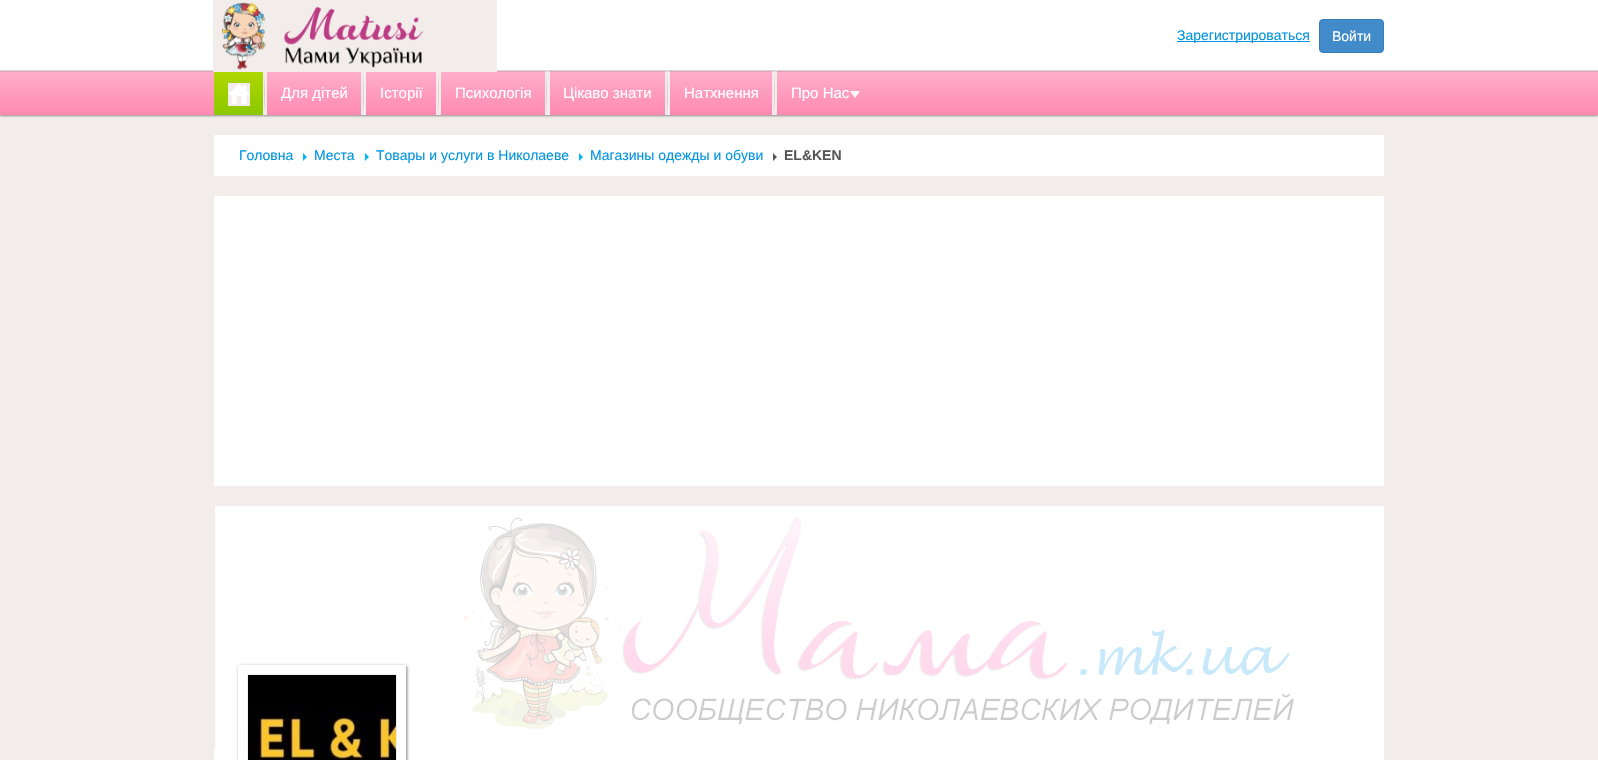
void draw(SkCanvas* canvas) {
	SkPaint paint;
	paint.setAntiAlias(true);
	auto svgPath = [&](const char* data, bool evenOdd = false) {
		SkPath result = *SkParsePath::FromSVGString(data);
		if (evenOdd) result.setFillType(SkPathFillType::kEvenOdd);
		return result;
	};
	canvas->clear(0xfff2edea);
	paint.setColor(0x66000000);
	paint.setMaskFilter(SkMaskFilter::MakeBlur(kNormal_SkBlurStyle, 1));
	canvas->drawRect(SkRect::MakeXYWH(0, 71, 1598, 45), paint);
	paint.setMaskFilter(nullptr);
	{
		const SkColor colors[] = {0xffffb0cb, 0xffff89b1};
		const float stops[] = {0, 1};
		const SkPoint ends[] = {{799, 70}, {799, 115}};
		paint.setShader(SkGradientShader::MakeLinear(ends, colors, stops, 2, SkTileMode::kClamp));
		paint.setAlpha(255);
	}
	canvas->drawRect(SkRect::MakeXYWH(0, 71, 1598, 44), paint);
	{
		const SkColor colors[] = {0xffb1d900, 0xff8bc700};
		const float stops[] = {0, 1};
		const SkPoint ends[] = {{240, 70}, {240, 115}};
		paint.setShader(SkGradientShader::MakeLinear(ends, colors, stops, 2, SkTileMode::kClamp));
		paint.setAlpha(255);
	}
	canvas->drawRect(SkRect::MakeXYWH(214, 72, 49, 43), paint);
	canvas->drawImageRect(SkImages::DeferredFromEncodedData(SkData::MakeFromFileName("img3.png")), SkRect::MakeXYWH(263, 72, 4, 43), SkSamplingOptions());
	canvas->drawImageRect(SkImages::DeferredFromEncodedData(SkData::MakeFromFileName("img4.png")), SkRect::MakeXYWH(361, 72, 5, 43), SkSamplingOptions());
	canvas->drawImageRect(SkImages::DeferredFromEncodedData(SkData::MakeFromFileName("img4.png")), SkRect::MakeXYWH(436, 72, 5, 43), SkSamplingOptions());
	canvas->drawImageRect(SkImages::DeferredFromEncodedData(SkData::MakeFromFileName("img5.png")), SkRect::MakeXYWH(545, 71, 5, 44), SkSamplingOptions());
	canvas->drawImageRect(SkImages::DeferredFromEncodedData(SkData::MakeFromFileName("img6.png")), SkRect::MakeXYWH(665, 71, 5, 44), SkSamplingOptions());
	canvas->drawImageRect(SkImages::DeferredFromEncodedData(SkData::MakeFromFileName("img6.png")), SkRect::MakeXYWH(772, 71, 5, 44), SkSamplingOptions());
	paint.setShader(nullptr);
	paint.setColor(0x80000000);
	paint.setMaskFilter(SkMaskFilter::MakeBlur(kNormal_SkBlurStyle, 0.5));
	canvas->drawRect(SkRect::MakeXYWH(0, 0, 1598, 71), paint);
	paint.setMaskFilter(nullptr);
	paint.setColor(0xffffffff);
	canvas->drawRect(SkRect::MakeXYWH(0, 0, 1598, 70), paint);
	paint.setColor(0xffd7d7d7);
	canvas->drawRect(SkRect::MakeXYWH(0, 70, 1598, 1), paint);
	canvas->drawImageRect(SkImages::DeferredFromEncodedData(SkData::MakeFromFileName("img1.png")), SkRect::MakeXYWH(213, 0, 284, 72), SkSamplingOptions());
	paint.setColor(0xff0094e1);
	canvas->drawRect(SkRect::MakeXYWH(1177, 41, 133, 1), paint);
	SkFont f1(fontMgr->matchFamilyStyle("Liberation Sans", SkFontStyle::Normal()), 14);
	f1.setSubpixel(true);
	canvas->drawString("Зарегистрироваться", 1177, 40, f1, paint);
	paint.setColor(0xff428bca);
	canvas->drawRoundRect(SkRect::MakeXYWH(1319.5, 19.5, 64, 33), 3.5, 3.5, paint);
	paint.setStroke(true);
	paint.setStrokeWidth(1);
	paint.setColor(0xff357ebd);
	canvas->drawRoundRect(SkRect::MakeXYWH(1319.5, 19.5, 64, 33), 3.5, 3.5, paint);
	paint.setStroke(false);
	paint.setColor(0xffffffff);
	canvas->drawString("Войти", 1332, 41, f1, paint);
	canvas->drawImageRect(SkImages::DeferredFromEncodedData(SkData::MakeFromFileName("img2.png")), SkRect::MakeXYWH(228, 83, 22, 23), SkSamplingOptions());
	SkFont f2(fontMgr->matchFamilyStyle("Liberation Sans", SkFontStyle::Normal()), 15);
	f2.setSubpixel(true);
	canvas->drawString("Для дітей", 281, 98, f2, paint);
	canvas->drawString("Історії", 380, 98, f2, paint);
	canvas->drawString("Психологія", 455, 98, f2, paint);
	canvas->drawString("Цікаво знати", 563, 98, f2, paint);
	canvas->drawString("Натхнення", 684, 98, f2, paint);
	canvas->drawString("Про Нас", 791, 98, f2, paint);
	canvas->drawPath(svgPath("M850 91H860L855 98Z"), paint);
	canvas->drawRect(SkRect::MakeXYWH(214, 135, 1170, 41), paint);
	paint.setColor(0xff0094e1);
	canvas->drawString("Головна", 239, 160, f1, paint);
	paint.setColor(0xff00b8f5);
	canvas->drawPath(svgPath("M303 161V153L307 157Z"), paint);
	paint.setColor(0xff0094e1);
	canvas->drawString("Места", 314, 160, f1, paint);
	paint.setColor(0xff00b8f5);
	canvas->drawPath(svgPath("M365 161V153L369 157Z"), paint);
	paint.setColor(0xff0094e1);
	canvas->drawString("Товары и услуги в Николаеве", 376, 160, f1, paint);
	paint.setColor(0xff00b8f5);
	canvas->drawPath(svgPath("M579 161V153L583 157Z"), paint);
	paint.setColor(0xff0094e1);
	canvas->drawString("Магазины одежды и обуви", 590, 160, f1, paint);
	paint.setColor(0xff565656);
	canvas->drawPath(svgPath("M773 161V153L777 157Z"), paint);
	SkFont f3(fontMgr->matchFamilyStyle("Liberation Sans", SkFontStyle::Bold()), 14);
	f3.setSubpixel(true);
	canvas->drawString("EL&KEN", 784, 160, f3, paint);
	paint.setColor(0xffffffff);
	canvas->drawRect(SkRect::MakeXYWH(214, 196, 1170, 290), paint);
	canvas->drawImageRect(SkImages::DeferredFromEncodedData(SkData::MakeFromFileName("img7.png")), SkRect::MakeXYWH(214, 506, 1170, 242), SkSamplingOptions());
	canvas->drawRect(SkRect::MakeXYWH(214, 748, 1170, 12), paint);
	canvas->save();
	canvas->clipPath(svgPath("M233 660H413V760H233ZM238 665H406V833H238Z", true), true);
	paint.setColor(0x80000000);
	paint.setMaskFilter(SkMaskFilter::MakeBlur(kNormal_SkBlurStyle, 1.5));
	canvas->drawRect(SkRect::MakeXYWH(239, 666, 168, 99), paint);
	paint.setMaskFilter(nullptr);
	canvas->restore();
	canvas->drawImageRect(SkImages::DeferredFromEncodedData(SkData::MakeFromFileName("img8.png")), SkRect::MakeXYWH(247, 674, 150, 86), SkSamplingOptions());
}
